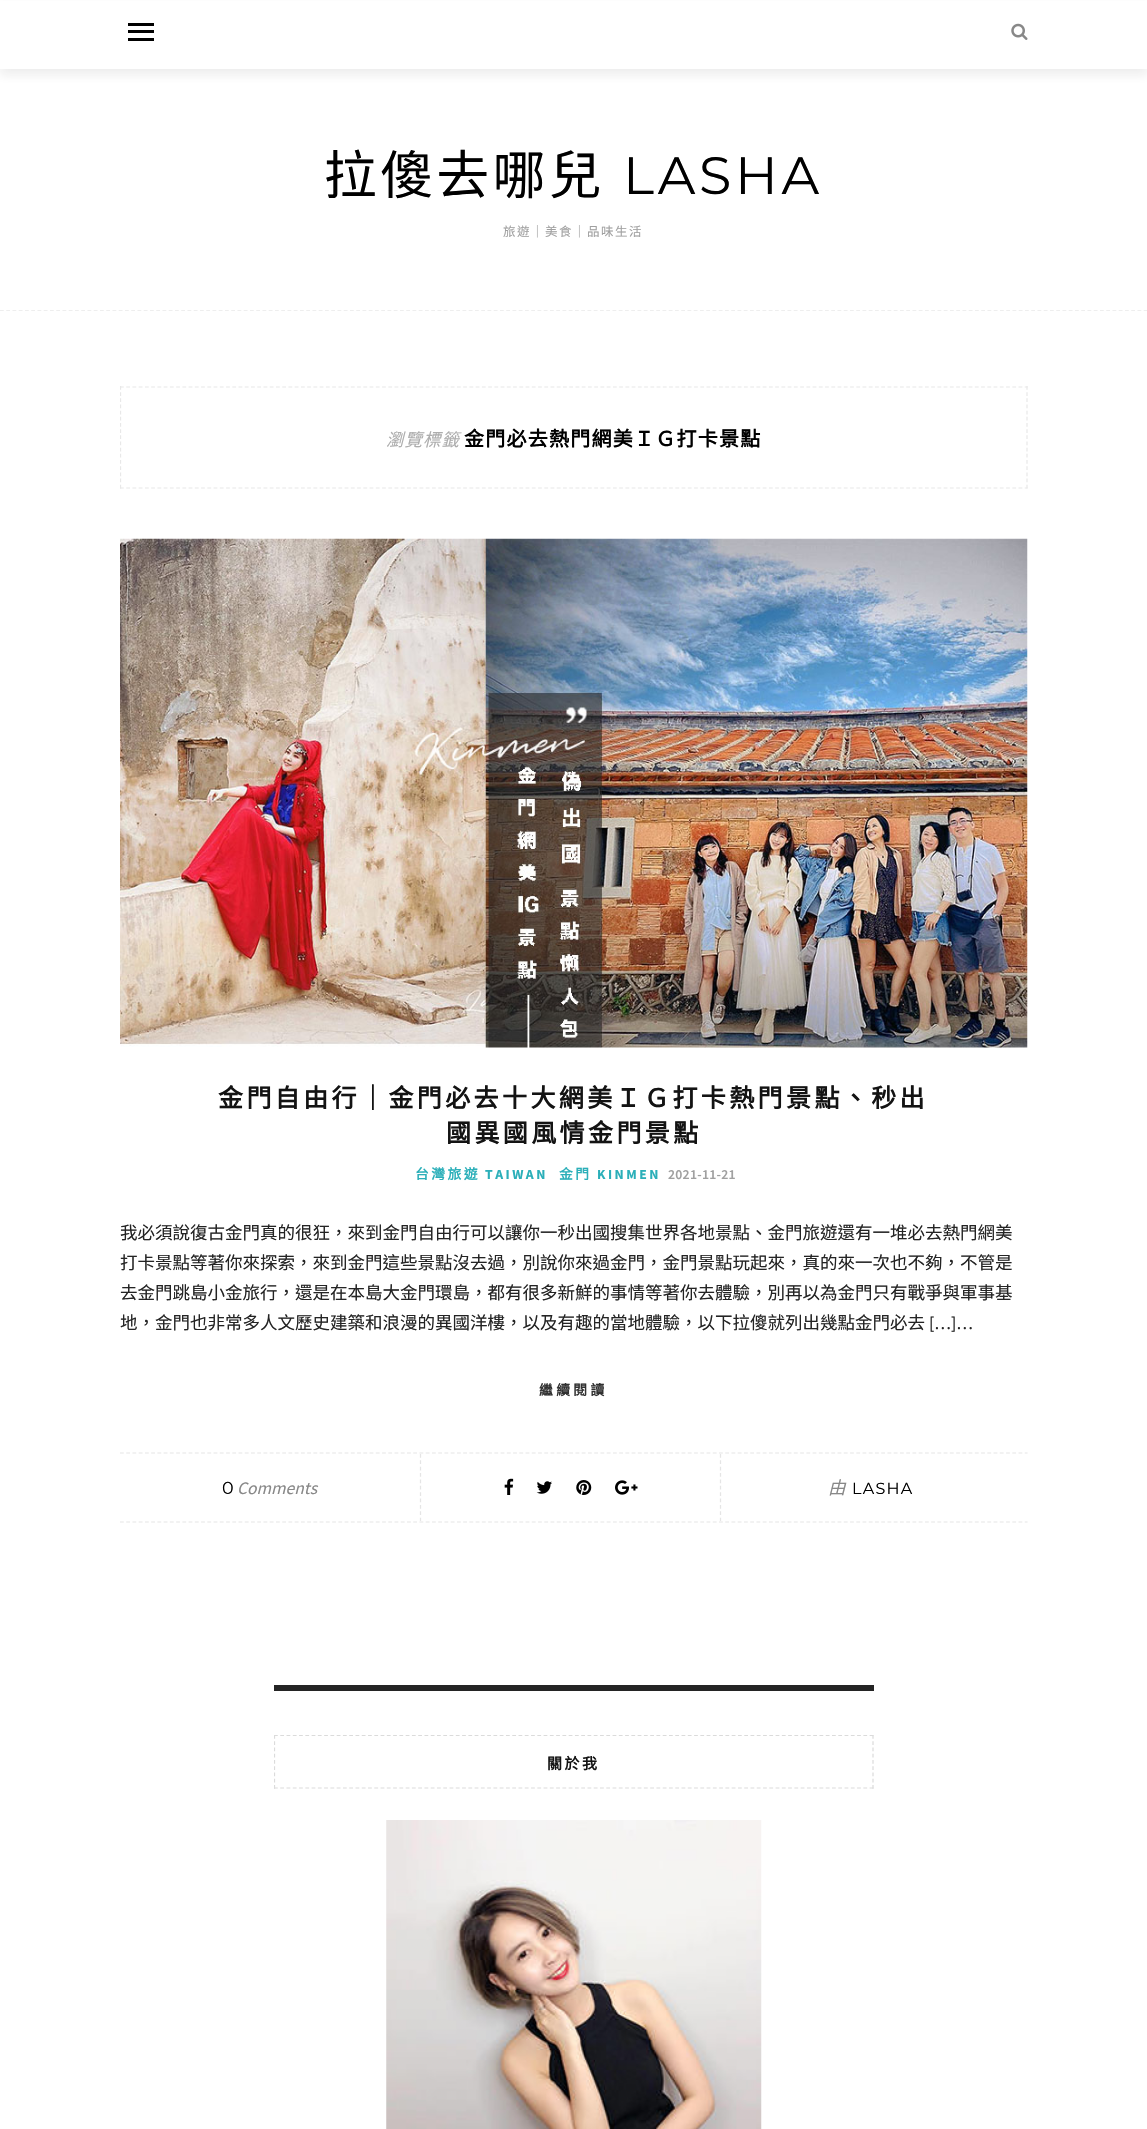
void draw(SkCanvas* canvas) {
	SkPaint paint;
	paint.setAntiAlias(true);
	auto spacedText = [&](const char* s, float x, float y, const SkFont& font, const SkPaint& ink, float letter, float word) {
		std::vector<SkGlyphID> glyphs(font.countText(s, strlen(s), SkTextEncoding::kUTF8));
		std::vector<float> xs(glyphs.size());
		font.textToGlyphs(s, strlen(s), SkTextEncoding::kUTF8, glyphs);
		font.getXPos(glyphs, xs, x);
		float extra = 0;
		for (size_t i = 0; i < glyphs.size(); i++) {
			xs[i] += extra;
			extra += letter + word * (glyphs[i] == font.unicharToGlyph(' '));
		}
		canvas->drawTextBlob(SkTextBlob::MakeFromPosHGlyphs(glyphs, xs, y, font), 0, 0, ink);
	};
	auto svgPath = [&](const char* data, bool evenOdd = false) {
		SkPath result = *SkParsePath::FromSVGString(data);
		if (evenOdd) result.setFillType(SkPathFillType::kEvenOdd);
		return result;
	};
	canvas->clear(0xffffffff);
	paint.setColor(0x14161616);
	paint.setMaskFilter(SkMaskFilter::MakeBlur(kNormal_SkBlurStyle, 5));
	canvas->drawRect(SkRect::MakeXYWH(0, 6, 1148, 69), paint);
	paint.setMaskFilter(nullptr);
	paint.setColor(0xffffffff);
	canvas->drawRect(SkRect::MakeXYWH(0, 1, 1147, 68), paint);
	paint.setColor(0xff000000);
	canvas->drawRect(SkRect::MakeXYWH(128, 23, 26, 3), paint);
	canvas->drawRect(SkRect::MakeXYWH(128, 30, 26, 3), paint);
	canvas->drawRect(SkRect::MakeXYWH(128, 38, 26, 3), paint);
	canvas->drawImageRect(SkImages::DeferredFromEncodedData(SkData::MakeFromFileName("img1.png")), SkRect::MakeXYWH(1011, 23, 17, 17), SkSamplingOptions());
	paint.setStroke(true);
	paint.setStrokeWidth(1.2);
	paint.setColor(0xffeeeeee);
	paint.setPathEffect(SkDashPathEffect::Make({{3.75f, 2.5f}}, 0));
	canvas->drawPath(svgPath("M0 310.5H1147.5"), paint);
	paint.setPathEffect(nullptr);
	SkFont f1(fontMgr->matchFamilyStyle("Noto Sans CJK TC", SkFontStyle::Normal()), 52.5);
	f1.setSubpixel(true);
	paint.setStroke(false);
	paint.setColor(0xff000000);
	spacedText("拉傻去哪兒", 324, 194, f1, paint, 3.75, 0);
	SkFont f2(fontMgr->matchFamilyStyle("Montserrat", SkFontStyle::Normal()), 52.5);
	f2.setSubpixel(true);
	spacedText("LASHA", 623, 194, f2, paint, 3.75, 0);
	SkFont f3(fontMgr->matchFamilyStyle("Noto Sans CJK TC", SkFontStyle::Normal()), 12.5);
	f3.setSubpixel(true);
	paint.setColor(0xffa0a0a0);
	spacedText("旅遊｜美食｜品味生活", 503, 236, f3, paint, 1.5, 0);
	paint.setStroke(true);
	paint.setColor(0xffe8e8e8);
	paint.setPathEffect(SkDashPathEffect::Make({{3.75f, 2.49f}}, 0));
	canvas->drawPath(svgPath("M120 387H1027.5"), paint);
	paint.setPathEffect(nullptr);
	paint.setPathEffect(SkDashPathEffect::Make({{3.75f, 2.42f}}, 0));
	canvas->drawPath(svgPath("M1027 386V489"), paint);
	paint.setPathEffect(nullptr);
	paint.setPathEffect(SkDashPathEffect::Make({{3.75f, 2.49f}}, 0));
	canvas->drawPath(svgPath("M120 488H1027.5"), paint);
	paint.setPathEffect(nullptr);
	canvas->save();
	canvas->clipRect(SkRect::MakeXYWH(120, 386, 908, 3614));
	paint.setPathEffect(SkDashPathEffect::Make({{3.75f, 2.42f}}, 0));
	canvas->drawPath(svgPath("M120.5 386V489"), paint);
	paint.setPathEffect(nullptr);
	canvas->restore();
	SkFont f4(fontMgr->matchFamilyStyle("Noto Sans CJK TC", SkFontStyle::Italic()), 17.5);
	f4.setSubpixel(true);
	paint.setStroke(false);
	paint.setColor(0xffadadad);
	spacedText("瀏覽標籤", 386, 446, f4, paint, 1, 0);
	SkFont f5(fontMgr->matchFamilyStyle("Noto Sans CJK TC", SkFontStyle::Bold()), 20);
	f5.setSubpixel(true);
	paint.setColor(0xff000000);
	spacedText("金門必去熱門網美ＩＧ打卡景點", 464, 446, f5, paint, 1.25, 0);
	canvas->drawImageRect(SkImages::DeferredFromEncodedData(SkData::MakeFromFileName("img2.png")), SkRect::MakeXYWH(120, 538, 908, 510), SkSamplingOptions());
	SkFont f6(fontMgr->matchFamilyStyle("Noto Sans CJK TC", SkFontStyle::Bold()), 25);
	f6.setSubpixel(true);
	paint.setColor(0xff131313);
	spacedText("金門自由行｜金門必去十大網美ＩＧ打卡熱門景點、秒出", 218, 1107, f6, paint, 3.4, 0);
	spacedText("國異國風情金門景點", 446, 1142, f6, paint, 3.4, 0);
	SkFont f7(fontMgr->matchFamilyStyle("Noto Sans CJK TC", SkFontStyle::Bold()), 13.75);
	f7.setSubpixel(true);
	paint.setColor(0xff2bafb9);
	spacedText("台灣旅遊", 415, 1179, f7, paint, 2.5, 0);
	SkFont f8(fontMgr->matchFamilyStyle("Source Sans Pro", SkFontStyle::Bold()), 13.75);
	f8.setSubpixel(true);
	spacedText("TAIWAN", 485, 1179, f8, paint, 2.5, 0);
	spacedText("金門", 559, 1179, f7, paint, 2.5, 0);
	spacedText("KINMEN", 597, 1179, f8, paint, 2.5, 0);
	SkFont f9(fontMgr->matchFamilyStyle("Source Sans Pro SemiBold", SkFontStyle(600, SkFontStyle::kNormal_Width, SkFontStyle::kUpright_Slant)), 13.75);
	f9.setSubpixel(true);
	paint.setColor(0xffa0a0a0);
	spacedText("2021-11-21", 668, 1179, f9, paint, 0.25, 0);
	SkFont f10(fontMgr->matchFamilyStyle("Noto Sans CJK TC", SkFontStyle::Normal()), 17.5);
	f10.setSubpixel(true);
	paint.setColor(0xff242424);
	canvas->drawString("我必須說復古金門真的很狂，來到金門自由行可以讓你一秒出國搜集世界各地景點、金門旅遊還有一堆必去熱門網美", 120, 1239, f10, paint);
	canvas->drawString("打卡景點等著你來探索，來到金門這些景點沒去過，別說你來過金門，金門景點玩起來，真的來一次也不夠，不管是", 120, 1269, f10, paint);
	canvas->drawString("去金門跳島小金旅行，還是在本島大金門環島，都有很多新鮮的事情等著你去體驗，別再以為金門只有戰爭與軍事基", 120, 1299, f10, paint);
	canvas->drawString("地，金門也非常多人文歷史建築和浪漫的異國洋樓，以及有趣的當地體驗，以下拉傻就列出幾點金門必去", 120, 1329, f10, paint);
	SkFont f11(fontMgr->matchFamilyStyle("Source Sans Pro", SkFontStyle::Normal()), 17.5);
	f11.setSubpixel(true);
	canvas->drawString("[…]…", 929, 1329, f11, paint);
	paint.setColor(0xff313131);
	spacedText("繼續閱讀", 539, 1395, f7, paint, 3.4, 0);
	paint.setStroke(true);
	paint.setColor(0xffe5e5e5);
	paint.setPathEffect(SkDashPathEffect::Make({{3.75f, 2.49f}}, 0));
	canvas->drawPath(svgPath("M120 1453H1027.5"), paint);
	paint.setPathEffect(nullptr);
	paint.setPathEffect(SkDashPathEffect::Make({{3.75f, 2.49f}}, 0));
	canvas->drawPath(svgPath("M120 1522H1027.5"), paint);
	paint.setPathEffect(nullptr);
	SkFont f12(fontMgr->matchFamilyStyle("Montserrat", SkFontStyle::Normal()), 17.5);
	f12.setSubpixel(true);
	paint.setStroke(false);
	paint.setColor(0xff000000);
	canvas->drawString("0", 222, 1494, f12, paint);
	SkFont f13(fontMgr->matchFamilyStyle("Source Sans Pro", SkFontStyle::Italic()), 17.5);
	f13.setSubpixel(true);
	paint.setColor(0xff888888);
	canvas->drawString("Comments", 237, 1494, f13, paint);
	paint.setStroke(true);
	paint.setColor(0xffe5e5e5);
	paint.setPathEffect(SkDashPathEffect::Make({{3.75f, 2.62f}}, 0));
	canvas->drawPath(svgPath("M420.5 1454V1521"), paint);
	paint.setPathEffect(nullptr);
	canvas->drawImageRect(SkImages::DeferredFromEncodedData(SkData::MakeFromFileName("img3.png")), SkRect::MakeXYWH(504, 1478, 10, 17), SkSamplingOptions());
	canvas->drawImageRect(SkImages::DeferredFromEncodedData(SkData::MakeFromFileName("img4.png")), SkRect::MakeXYWH(536, 1481, 16, 13), SkSamplingOptions());
	canvas->drawImageRect(SkImages::DeferredFromEncodedData(SkData::MakeFromFileName("img5.png")), SkRect::MakeXYWH(576, 1480, 16, 15), SkSamplingOptions());
	canvas->drawImageRect(SkImages::DeferredFromEncodedData(SkData::MakeFromFileName("img6.png")), SkRect::MakeXYWH(615, 1480, 23, 15), SkSamplingOptions());
	paint.setPathEffect(SkDashPathEffect::Make({{3.75f, 2.62f}}, 0));
	canvas->drawPath(svgPath("M720.5 1454V1521"), paint);
	paint.setPathEffect(nullptr);
	paint.setStroke(false);
	paint.setColor(0xff888888);
	canvas->drawString("由", 828, 1494, f4, paint);
	SkFont f14(fontMgr->matchFamilyStyle("Montserrat", SkFontStyle::Normal()), 16);
	f14.setSubpixel(true);
	paint.setColor(0xff000000);
	spacedText("LASHA", 852, 1494, f14, paint, 1.25, 0);
	paint.setColor(0xff242424);
	canvas->drawRect(SkRect::MakeXYWH(274, 1685, 600, 6), paint);
	paint.setStroke(true);
	paint.setColor(0xffdbdbdb);
	paint.setPathEffect(SkDashPathEffect::Make({{3.75f, 2.52f}}, 0));
	canvas->drawPath(svgPath("M274 1735.5H874"), paint);
	paint.setPathEffect(nullptr);
	paint.setPathEffect(SkDashPathEffect::Make({{3.75f, 2.5f}}, 0));
	canvas->drawPath(svgPath("M873 1735V1789"), paint);
	paint.setPathEffect(nullptr);
	paint.setPathEffect(SkDashPathEffect::Make({{3.75f, 2.52f}}, 0));
	canvas->drawPath(svgPath("M274 1788H874"), paint);
	paint.setPathEffect(nullptr);
	canvas->save();
	canvas->clipRect(SkRect::MakeXYWH(274, 1654, 600, 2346));
	paint.setPathEffect(SkDashPathEffect::Make({{3.75f, 2.5f}}, 0));
	canvas->drawPath(svgPath("M274.5 1735V1789"), paint);
	paint.setPathEffect(nullptr);
	canvas->restore();
	SkFont f15(fontMgr->matchFamilyStyle("Noto Sans CJK TC", SkFontStyle::Bold()), 15);
	f15.setSubpixel(true);
	paint.setStroke(false);
	paint.setColor(0xff131313);
	spacedText("關於我", 547, 1769, f15, paint, 2.5, 0);
	canvas->drawImageRect(SkImages::DeferredFromEncodedData(SkData::MakeFromFileName("img7.png")), SkRect::MakeXYWH(386, 1820, 376, 309), SkSamplingOptions());
}
